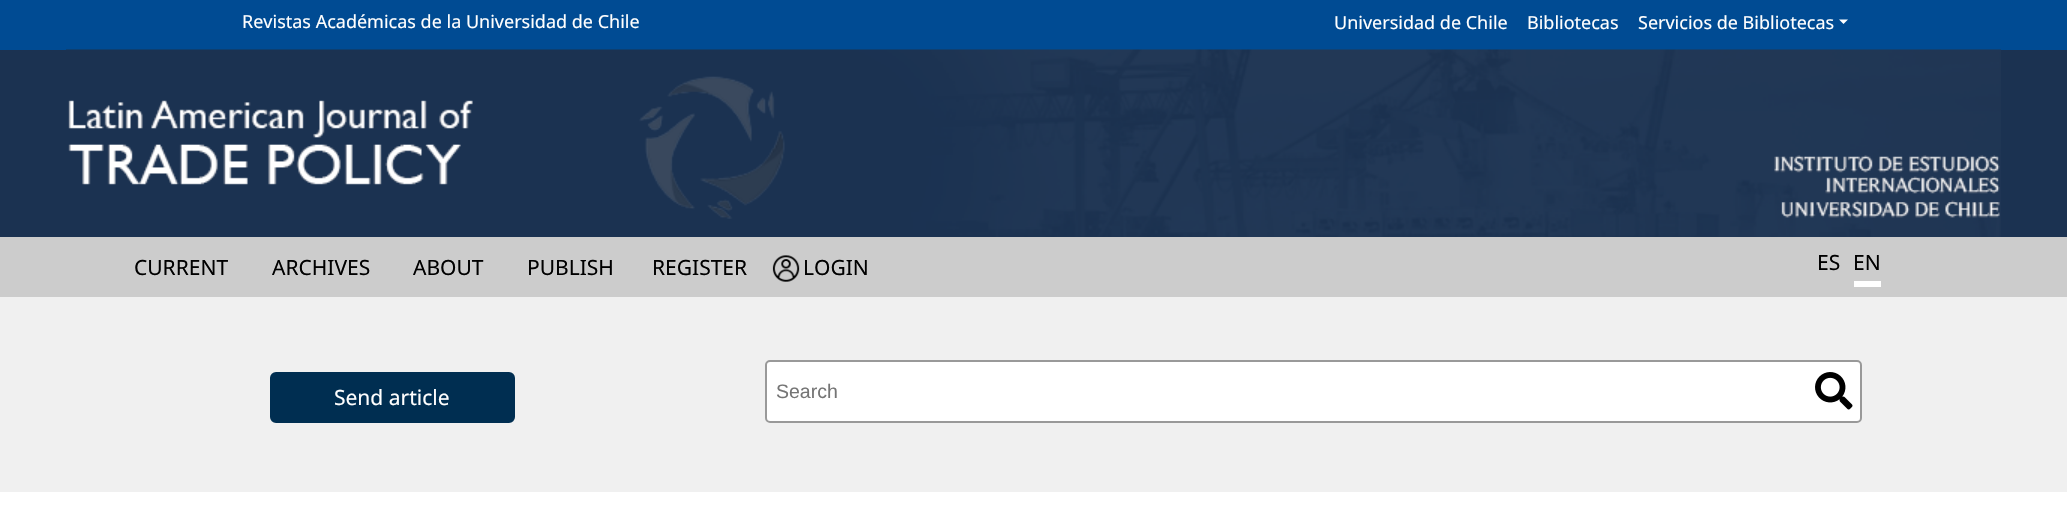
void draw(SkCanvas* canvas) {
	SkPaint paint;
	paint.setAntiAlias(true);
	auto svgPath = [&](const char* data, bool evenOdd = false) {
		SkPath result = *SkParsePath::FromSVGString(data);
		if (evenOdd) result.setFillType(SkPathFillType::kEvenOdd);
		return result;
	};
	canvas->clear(0xffffffff);
	paint.setColor(0xff004b93);
	canvas->drawRect(SkRect::MakeXYWH(0, 0, 2067, 50), paint);
	SkFont f1(fontMgr->matchFamilyStyle("Noto Sans", SkFontStyle::Normal()), 18);
	f1.setSubpixel(true);
	paint.setColor(0xffffffff);
	canvas->drawString("Revistas Académicas de la Universidad de Chile", 242, 28, f1, paint);
	canvas->drawString("Universidad de Chile", 1334, 29, f1, paint);
	canvas->drawString("Bibliotecas", 1527, 29, f1, paint);
	canvas->drawString("Servicios de Bibliotecas", 1638, 29, f1, paint);
	canvas->drawPath(svgPath("M1839 19.5H1848L1843.5 24Z"), paint);
	paint.setColor(0xff1b3251);
	canvas->drawRect(SkRect::MakeXYWH(0, 50, 2067, 187), paint);
	canvas->drawImageRect(SkImages::DeferredFromEncodedData(SkData::MakeFromFileName("img1.png")), SkRect::MakeXYWH(66, 49, 1935, 188), SkSamplingOptions());
	paint.setColor(0xfff0f0f0);
	canvas->drawRect(SkRect::MakeXYWH(0, 297, 2067, 195), paint);
	paint.setColor(0xffcccccc);
	canvas->drawRect(SkRect::MakeXYWH(0, 237, 2067, 60), paint);
	SkFont f2(fontMgr->matchFamilyStyle("Noto Sans", SkFontStyle::Normal()), 21);
	f2.setSubpixel(true);
	paint.setColor(0xff000000);
	canvas->drawString("CURRENT", 134, 275, f2, paint);
	canvas->drawString("ARCHIVES", 272, 275, f2, paint);
	canvas->drawString("ABOUT", 413, 275, f2, paint);
	canvas->drawString("PUBLISH", 527, 275, f2, paint);
	canvas->drawString("REGISTER", 652, 275, f2, paint);
	canvas->drawImageRect(SkImages::DeferredFromEncodedData(SkData::MakeFromFileName("img2.png")), SkRect::MakeXYWH(772, 255, 28, 27), SkSamplingOptions());
	canvas->drawString("LOGIN", 803, 275, f2, paint);
	canvas->drawString("ES", 1817, 270, f2, paint);
	paint.setColor(0xffffffff);
	canvas->drawRect(SkRect::MakeXYWH(1854, 281, 27, 6), paint);
	paint.setColor(0xff000000);
	canvas->drawString("EN", 1853, 270, f2, paint);
	paint.setColor(0xff002e51);
	canvas->drawRoundRect(SkRect::MakeXYWH(271, 373, 243, 49), 5, 5, paint);
	paint.setStroke(true);
	paint.setStrokeWidth(2);
	canvas->drawRoundRect(SkRect::MakeXYWH(271, 373, 243, 49), 5, 5, paint);
	paint.setStroke(false);
	paint.setColor(0xffffffff);
	canvas->drawString("Send article", 334, 405, f2, paint);
	canvas->drawRoundRect(SkRect::MakeXYWH(765, 360, 1097, 63), 5, 5, paint);
	paint.setStroke(true);
	paint.setColor(0x66000000);
	canvas->drawRoundRect(SkRect::MakeXYWH(766, 361, 1095, 61), 4, 4, paint);
	SkFont f3(fontMgr->matchFamilyStyle("Liberation Sans", SkFontStyle::Normal()), 19.5);
	f3.setSubpixel(true);
	paint.setStroke(false);
	paint.setColor(0xff757575);
	canvas->drawString("Search", 776, 398, f3, paint);
	canvas->drawImageRect(SkImages::DeferredFromEncodedData(SkData::MakeFromFileName("img3.png")), SkRect::MakeXYWH(1815, 372, 38, 38), SkSamplingOptions());
}
